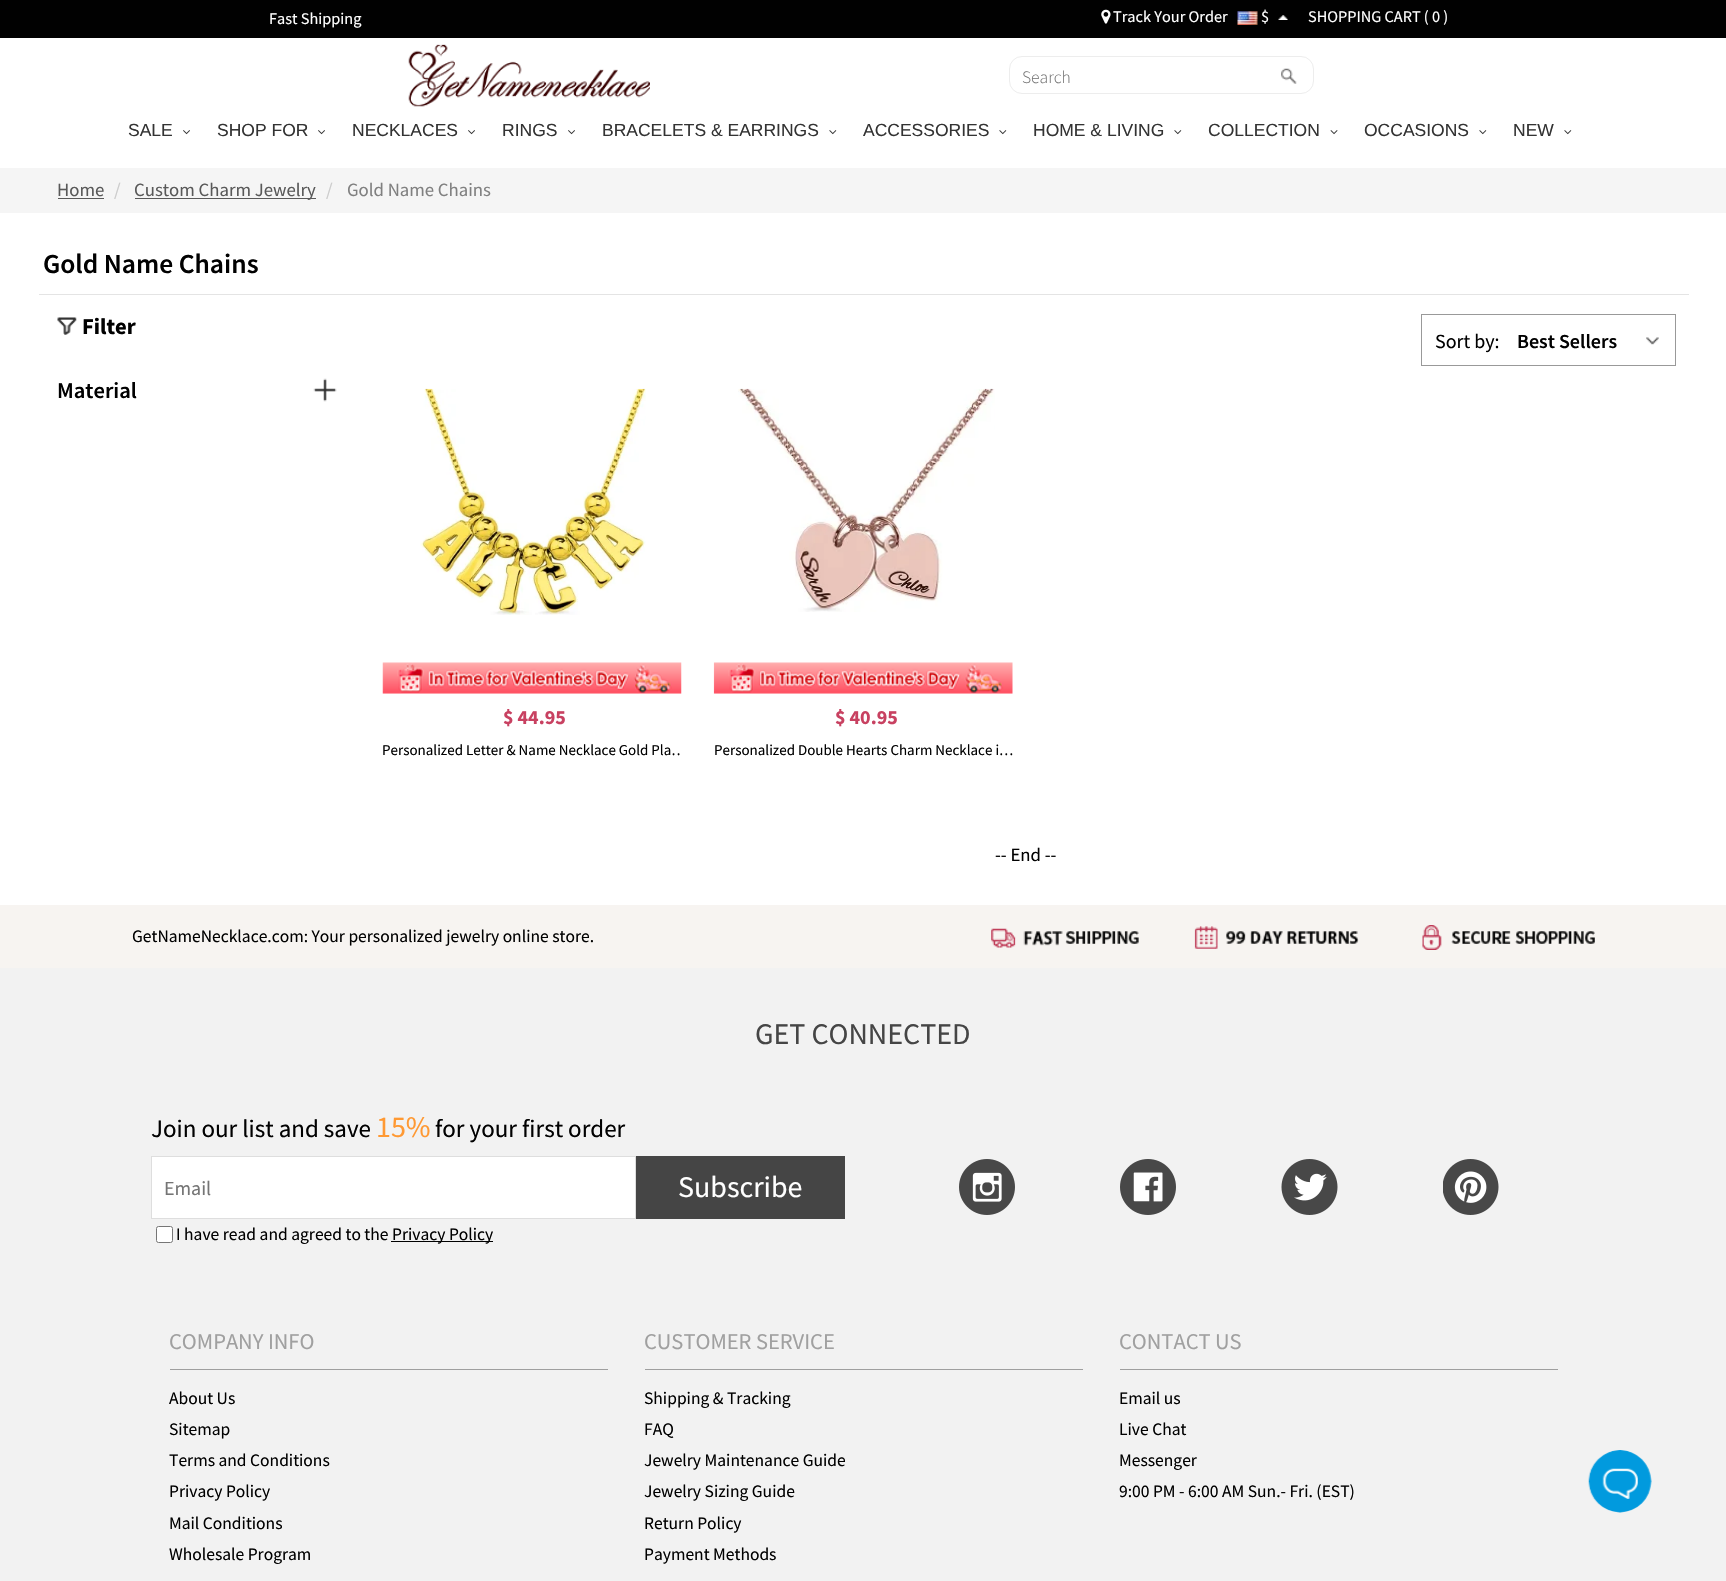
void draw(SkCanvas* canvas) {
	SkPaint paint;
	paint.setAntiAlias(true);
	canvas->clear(0xffffffff);
	paint.setColor(0xff010101);
	canvas->drawRect(SkRect::MakeXYWH(0, 0, 1726, 38), paint);
	SkFont f1(fontMgr->matchFamilyStyle("Source Sans Pro", SkFontStyle::Normal()), 16.25);
	f1.setSubpixel(true);
	paint.setColor(0xffffffff);
	canvas->drawString("Fast Shipping", 269, 24, f1, paint);
	canvas->drawImageRect(SkImages::DeferredFromEncodedData(SkData::MakeFromFileName("img1.png")), SkRect::MakeXYWH(1101, 9, 10, 15), SkSamplingOptions());
	canvas->drawString("Track Your Order", 1113, 22, f1, paint);
	canvas->drawImageRect(SkImages::DeferredFromEncodedData(SkData::MakeFromFileName("img2.png")), SkRect::MakeXYWH(1237, 11, 21, 14), SkSamplingOptions());
	canvas->drawString("$", 1261, 22, f1, paint);
	canvas->drawImageRect(SkImages::DeferredFromEncodedData(SkData::MakeFromFileName("img3.png")), SkRect::MakeXYWH(1278, 15, 10, 5), SkSamplingOptions());
	canvas->drawString("SHOPPING CART ( 0 )", 1308, 22, f1, paint);
	canvas->drawImageRect(SkImages::DeferredFromEncodedData(SkData::MakeFromFileName("img4.png")), SkRect::MakeXYWH(408, 44, 242, 63), SkSamplingOptions());
	paint.setStroke(true);
	paint.setStrokeWidth(1);
	paint.setColor(0xffededed);
	canvas->drawRoundRect(SkRect::MakeXYWH(1009.5, 56.5, 304, 37), 12.5, 12.5, paint);
	SkFont f2(fontMgr->matchFamilyStyle("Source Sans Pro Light", SkFontStyle(300, SkFontStyle::kNormal_Width, SkFontStyle::kUpright_Slant)), 17.5);
	f2.setSubpixel(true);
	paint.setStroke(false);
	paint.setColor(0xff757575);
	canvas->drawString("Search", 1022, 83, f2, paint);
	canvas->drawImageRect(SkImages::DeferredFromEncodedData(SkData::MakeFromFileName("img5.png")), SkRect::MakeXYWH(1281, 68, 16, 16), SkSamplingOptions());
	SkFont f3(fontMgr->matchFamilyStyle("Liberation Sans", SkFontStyle::Normal()), 17.5);
	f3.setSubpixel(true);
	paint.setColor(0xff333333);
	canvas->drawString("SALE", 128, 136, f3, paint);
	canvas->drawImageRect(SkImages::DeferredFromEncodedData(SkData::MakeFromFileName("img6.png")), SkRect::MakeXYWH(183, 130, 7, 5), SkSamplingOptions());
	canvas->drawString("SHOP FOR", 217, 136, f3, paint);
	canvas->drawImageRect(SkImages::DeferredFromEncodedData(SkData::MakeFromFileName("img6.png")), SkRect::MakeXYWH(318, 130, 7, 5), SkSamplingOptions());
	canvas->drawString("NECKLACES", 352, 136, f3, paint);
	canvas->drawImageRect(SkImages::DeferredFromEncodedData(SkData::MakeFromFileName("img6.png")), SkRect::MakeXYWH(468, 130, 7, 5), SkSamplingOptions());
	canvas->drawString("RINGS", 502, 136, f3, paint);
	canvas->drawImageRect(SkImages::DeferredFromEncodedData(SkData::MakeFromFileName("img6.png")), SkRect::MakeXYWH(568, 130, 7, 5), SkSamplingOptions());
	canvas->drawString("BRACELETS & EARRINGS", 602, 136, f3, paint);
	canvas->drawImageRect(SkImages::DeferredFromEncodedData(SkData::MakeFromFileName("img7.png")), SkRect::MakeXYWH(829, 130, 8, 5), SkSamplingOptions());
	canvas->drawString("ACCESSORIES", 863, 136, f3, paint);
	canvas->drawImageRect(SkImages::DeferredFromEncodedData(SkData::MakeFromFileName("img7.png")), SkRect::MakeXYWH(999, 130, 8, 5), SkSamplingOptions());
	canvas->drawString("HOME & LIVING", 1033, 136, f3, paint);
	canvas->drawImageRect(SkImages::DeferredFromEncodedData(SkData::MakeFromFileName("img7.png")), SkRect::MakeXYWH(1174, 130, 8, 5), SkSamplingOptions());
	canvas->drawString("COLLECTION", 1208, 136, f3, paint);
	canvas->drawImageRect(SkImages::DeferredFromEncodedData(SkData::MakeFromFileName("img8.png")), SkRect::MakeXYWH(1330, 130, 8, 5), SkSamplingOptions());
	canvas->drawString("OCCASIONS", 1364, 136, f3, paint);
	canvas->drawImageRect(SkImages::DeferredFromEncodedData(SkData::MakeFromFileName("img7.png")), SkRect::MakeXYWH(1479, 130, 8, 5), SkSamplingOptions());
	canvas->drawString("NEW", 1513, 136, f3, paint);
	canvas->drawImageRect(SkImages::DeferredFromEncodedData(SkData::MakeFromFileName("img7.png")), SkRect::MakeXYWH(1564, 130, 8, 5), SkSamplingOptions());
	paint.setColor(0xfff5f5f5);
	canvas->drawRect(SkRect::MakeXYWH(0, 168, 1726, 45), paint);
	SkFont f4(fontMgr->matchFamilyStyle("Source Sans Pro", SkFontStyle::Normal()), 18.75);
	f4.setSubpixel(true);
	paint.setColor(0xff595959);
	canvas->drawString("Home", 57, 196, f4, paint);
	canvas->drawRect(SkRect::MakeXYWH(58, 198, 46, 1), paint);
	paint.setColor(0xffcccccc);
	canvas->drawString("/", 114, 196, f4, paint);
	paint.setColor(0xff595959);
	canvas->drawRect(SkRect::MakeXYWH(135, 198, 181, 1), paint);
	canvas->drawString("Custom Charm Jewelry", 134, 196, f4, paint);
	paint.setColor(0xffcccccc);
	canvas->drawString("/", 326, 196, f4, paint);
	paint.setColor(0xff808080);
	canvas->drawString("Gold Name Chains", 347, 196, f4, paint);
	paint.setColor(0xffe4e4e4);
	canvas->drawRect(SkRect::MakeXYWH(39, 294, 1650, 1), paint);
	SkFont f5(fontMgr->matchFamilyStyle("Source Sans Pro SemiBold", SkFontStyle(600, SkFontStyle::kNormal_Width, SkFontStyle::kUpright_Slant)), 27.5);
	f5.setSubpixel(true);
	paint.setColor(0xff010101);
	canvas->drawString("Gold Name Chains", 43, 273, f5, paint);
	canvas->drawImageRect(SkImages::DeferredFromEncodedData(SkData::MakeFromFileName("img9.png")), SkRect::MakeXYWH(57, 317, 20, 18), SkSamplingOptions());
	SkFont f6(fontMgr->matchFamilyStyle("Source Sans Pro", SkFontStyle::Bold()), 22.5);
	f6.setSubpixel(true);
	canvas->drawString("Filter", 82, 334, f6, paint);
	SkFont f7(fontMgr->matchFamilyStyle("Source Sans Pro SemiBold", SkFontStyle(600, SkFontStyle::kNormal_Width, SkFontStyle::kUpright_Slant)), 22.5);
	f7.setSubpixel(true);
	canvas->drawString("Material", 57, 398, f7, paint);
	canvas->drawImageRect(SkImages::DeferredFromEncodedData(SkData::MakeFromFileName("img10.png")), SkRect::MakeXYWH(313, 378, 24, 24), SkSamplingOptions());
	paint.setStroke(true);
	paint.setColor(0xff999999);
	canvas->drawRect(SkRect::MakeXYWH(1421.5, 314.5, 254, 51), paint);
	SkFont f8(fontMgr->matchFamilyStyle("Source Sans Pro", SkFontStyle::Normal()), 20);
	f8.setSubpixel(true);
	paint.setStroke(false);
	paint.setColor(0xff010101);
	canvas->drawString("Sort by:", 1435, 348, f8, paint);
	SkFont f9(fontMgr->matchFamilyStyle("Source Sans Pro SemiBold", SkFontStyle(600, SkFontStyle::kNormal_Width, SkFontStyle::kUpright_Slant)), 20);
	f9.setSubpixel(true);
	canvas->drawString("Best Sellers", 1517, 348, f9, paint);
	canvas->drawImageRect(SkImages::DeferredFromEncodedData(SkData::MakeFromFileName("img11.png")), SkRect::MakeXYWH(1646, 337, 13, 8), SkSamplingOptions());
	canvas->drawImageRect(SkImages::DeferredFromEncodedData(SkData::MakeFromFileName("img12.png")), SkRect::MakeXYWH(420, 388, 226, 227), SkSamplingOptions());
	canvas->drawImageRect(SkImages::DeferredFromEncodedData(SkData::MakeFromFileName("img13.png")), SkRect::MakeXYWH(382, 662, 300, 32), SkSamplingOptions());
	SkFont f10(fontMgr->matchFamilyStyle("Source Sans Pro", SkFontStyle::Bold()), 20);
	f10.setSubpixel(true);
	paint.setColor(0xffc84161);
	canvas->drawString("$ 44.95", 503, 724, f10, paint);
	canvas->save();
	canvas->clipRect(SkRect::MakeXYWH(383, 731, 298, 38));
	SkFont f11(fontMgr->matchFamilyStyle("Source Sans Pro", SkFontStyle::Normal()), 15);
	f11.setSubpixel(true);
	paint.setColor(0xff010101);
	canvas->drawString("Personalized Letter & Name Necklace Gold Pla…", 382, 755, f11, paint);
	canvas->restore();
	canvas->drawImageRect(SkImages::DeferredFromEncodedData(SkData::MakeFromFileName("img14.png")), SkRect::MakeXYWH(738, 388, 257, 224), SkSamplingOptions());
	canvas->drawImageRect(SkImages::DeferredFromEncodedData(SkData::MakeFromFileName("img15.png")), SkRect::MakeXYWH(713, 662, 300, 32), SkSamplingOptions());
	paint.setColor(0xffc84161);
	canvas->drawString("$ 40.95", 835, 724, f10, paint);
	paint.setColor(0xff010101);
	canvas->drawString("Personalized Double Hearts Charm Necklace i…", 714, 755, f11, paint);
	canvas->drawString("-- End --", 995, 861, f4, paint);
	paint.setColor(0xfff7f4f1);
	canvas->drawRect(SkRect::MakeXYWH(0, 905, 1726, 63), paint);
	SkFont f12(fontMgr->matchFamilyStyle("Source Sans Pro", SkFontStyle::Normal()), 17.5);
	f12.setSubpixel(true);
	paint.setColor(0xff010101);
	canvas->drawString("GetNameNecklace.com: Your personalized jewelry online store.", 132, 942, f12, paint);
	canvas->drawImageRect(SkImages::DeferredFromEncodedData(SkData::MakeFromFileName("img16.png")), SkRect::MakeXYWH(991, 925, 604, 25), SkSamplingOptions());
	paint.setColor(0xfff2f2f2);
	canvas->drawRect(SkRect::MakeXYWH(0, 968, 1726, 613), paint);
	SkFont f13(fontMgr->matchFamilyStyle("Source Sans Pro", SkFontStyle::Normal()), 30);
	f13.setSubpixel(true);
	paint.setColor(0xff454545);
	canvas->drawString("GET CONNECTED", 755, 1044, f13, paint);
	SkFont f14(fontMgr->matchFamilyStyle("Source Sans Pro", SkFontStyle::Normal()), 25);
	f14.setSubpixel(true);
	paint.setColor(0xff010101);
	canvas->drawString("Join our list and save", 151, 1137, f14, paint);
	paint.setColor(0xffff9933);
	canvas->drawString("15%", 376, 1137, f13, paint);
	paint.setColor(0xff010101);
	canvas->drawString("for your first order", 435, 1137, f14, paint);
	paint.setColor(0xffffffff);
	canvas->drawRect(SkRect::MakeXYWH(151.5, 1156.5, 484, 62), paint);
	paint.setStroke(true);
	paint.setColor(0xffdedede);
	canvas->drawRect(SkRect::MakeXYWH(151.5, 1156.5, 484, 62), paint);
	paint.setStroke(false);
	paint.setColor(0xff757575);
	canvas->drawString("Email", 164, 1195, f8, paint);
	paint.setColor(0xff454545);
	canvas->drawRect(SkRect::MakeXYWH(636, 1156, 209, 63), paint);
	paint.setColor(0xffffffff);
	canvas->drawString("Subscribe", 678, 1197, f13, paint);
	canvas->drawRoundRect(SkRect::MakeXYWH(156.5, 1226.5, 16, 16), 2, 2, paint);
	paint.setStroke(true);
	paint.setColor(0xff767676);
	canvas->drawRoundRect(SkRect::MakeXYWH(156.5, 1226.5, 16, 16), 2, 2, paint);
	paint.setStroke(false);
	paint.setColor(0xff010101);
	canvas->drawString("I have read and agreed to the", 176, 1240, f12, paint);
	canvas->drawRect(SkRect::MakeXYWH(391, 1241, 102, 1), paint);
	canvas->drawString("Privacy Policy", 392, 1240, f12, paint);
	canvas->drawImageRect(SkImages::DeferredFromEncodedData(SkData::MakeFromFileName("img17.png")), SkRect::MakeXYWH(959, 1159, 56, 56), SkSamplingOptions());
	canvas->drawImageRect(SkImages::DeferredFromEncodedData(SkData::MakeFromFileName("img18.png")), SkRect::MakeXYWH(1120, 1159, 56, 56), SkSamplingOptions());
	canvas->drawImageRect(SkImages::DeferredFromEncodedData(SkData::MakeFromFileName("img19.png")), SkRect::MakeXYWH(1281, 1159, 57, 56), SkSamplingOptions());
	canvas->drawImageRect(SkImages::DeferredFromEncodedData(SkData::MakeFromFileName("img20.png")), SkRect::MakeXYWH(1443, 1159, 56, 56), SkSamplingOptions());
	paint.setColor(0xff9f9f9f);
	canvas->drawRect(SkRect::MakeXYWH(170, 1369, 438, 1), paint);
	SkFont f15(fontMgr->matchFamilyStyle("Source Sans Pro", SkFontStyle::Normal()), 22.5);
	f15.setSubpixel(true);
	paint.setColor(0xffa0a0a0);
	canvas->drawString("COMPANY INFO", 169, 1349, f15, paint);
	paint.setColor(0xff010101);
	canvas->drawString("About Us", 169, 1404, f12, paint);
	canvas->drawString("Sitemap", 169, 1435, f12, paint);
	canvas->drawString("Terms and Conditions", 169, 1466, f12, paint);
	canvas->drawString("Privacy Policy", 169, 1497, f12, paint);
	canvas->drawString("Mail Conditions", 169, 1529, f12, paint);
	canvas->drawString("Wholesale Program", 169, 1560, f12, paint);
	paint.setColor(0xff9f9f9f);
	canvas->drawRect(SkRect::MakeXYWH(645, 1369, 438, 1), paint);
	paint.setColor(0xffa0a0a0);
	canvas->drawString("CUSTOMER SERVICE", 644, 1349, f15, paint);
	paint.setColor(0xff010101);
	canvas->drawString("Shipping & Tracking", 644, 1404, f12, paint);
	canvas->drawString("FAQ", 644, 1435, f12, paint);
	canvas->drawString("Jewelry Maintenance Guide", 644, 1466, f12, paint);
	canvas->drawString("Jewelry Sizing Guide", 644, 1497, f12, paint);
	canvas->drawString("Return Policy", 644, 1529, f12, paint);
	canvas->drawString("Payment Methods", 644, 1560, f12, paint);
	paint.setColor(0xff9f9f9f);
	canvas->drawRect(SkRect::MakeXYWH(1120, 1369, 438, 1), paint);
	paint.setColor(0xffa0a0a0);
	canvas->drawString("CONTACT US", 1119, 1349, f15, paint);
	paint.setColor(0xff010101);
	canvas->drawString("Email us", 1119, 1404, f12, paint);
	canvas->drawString("Live Chat", 1119, 1435, f12, paint);
	canvas->drawString("Messenger", 1119, 1466, f12, paint);
	canvas->drawString("9:00 PM - 6:00 AM Sun.- Fri. (EST)", 1119, 1497, f12, paint);
	canvas->drawImageRect(SkImages::DeferredFromEncodedData(SkData::MakeFromFileName("img21.png")), SkRect::MakeXYWH(1588, 1450, 64, 63), SkSamplingOptions());
}
